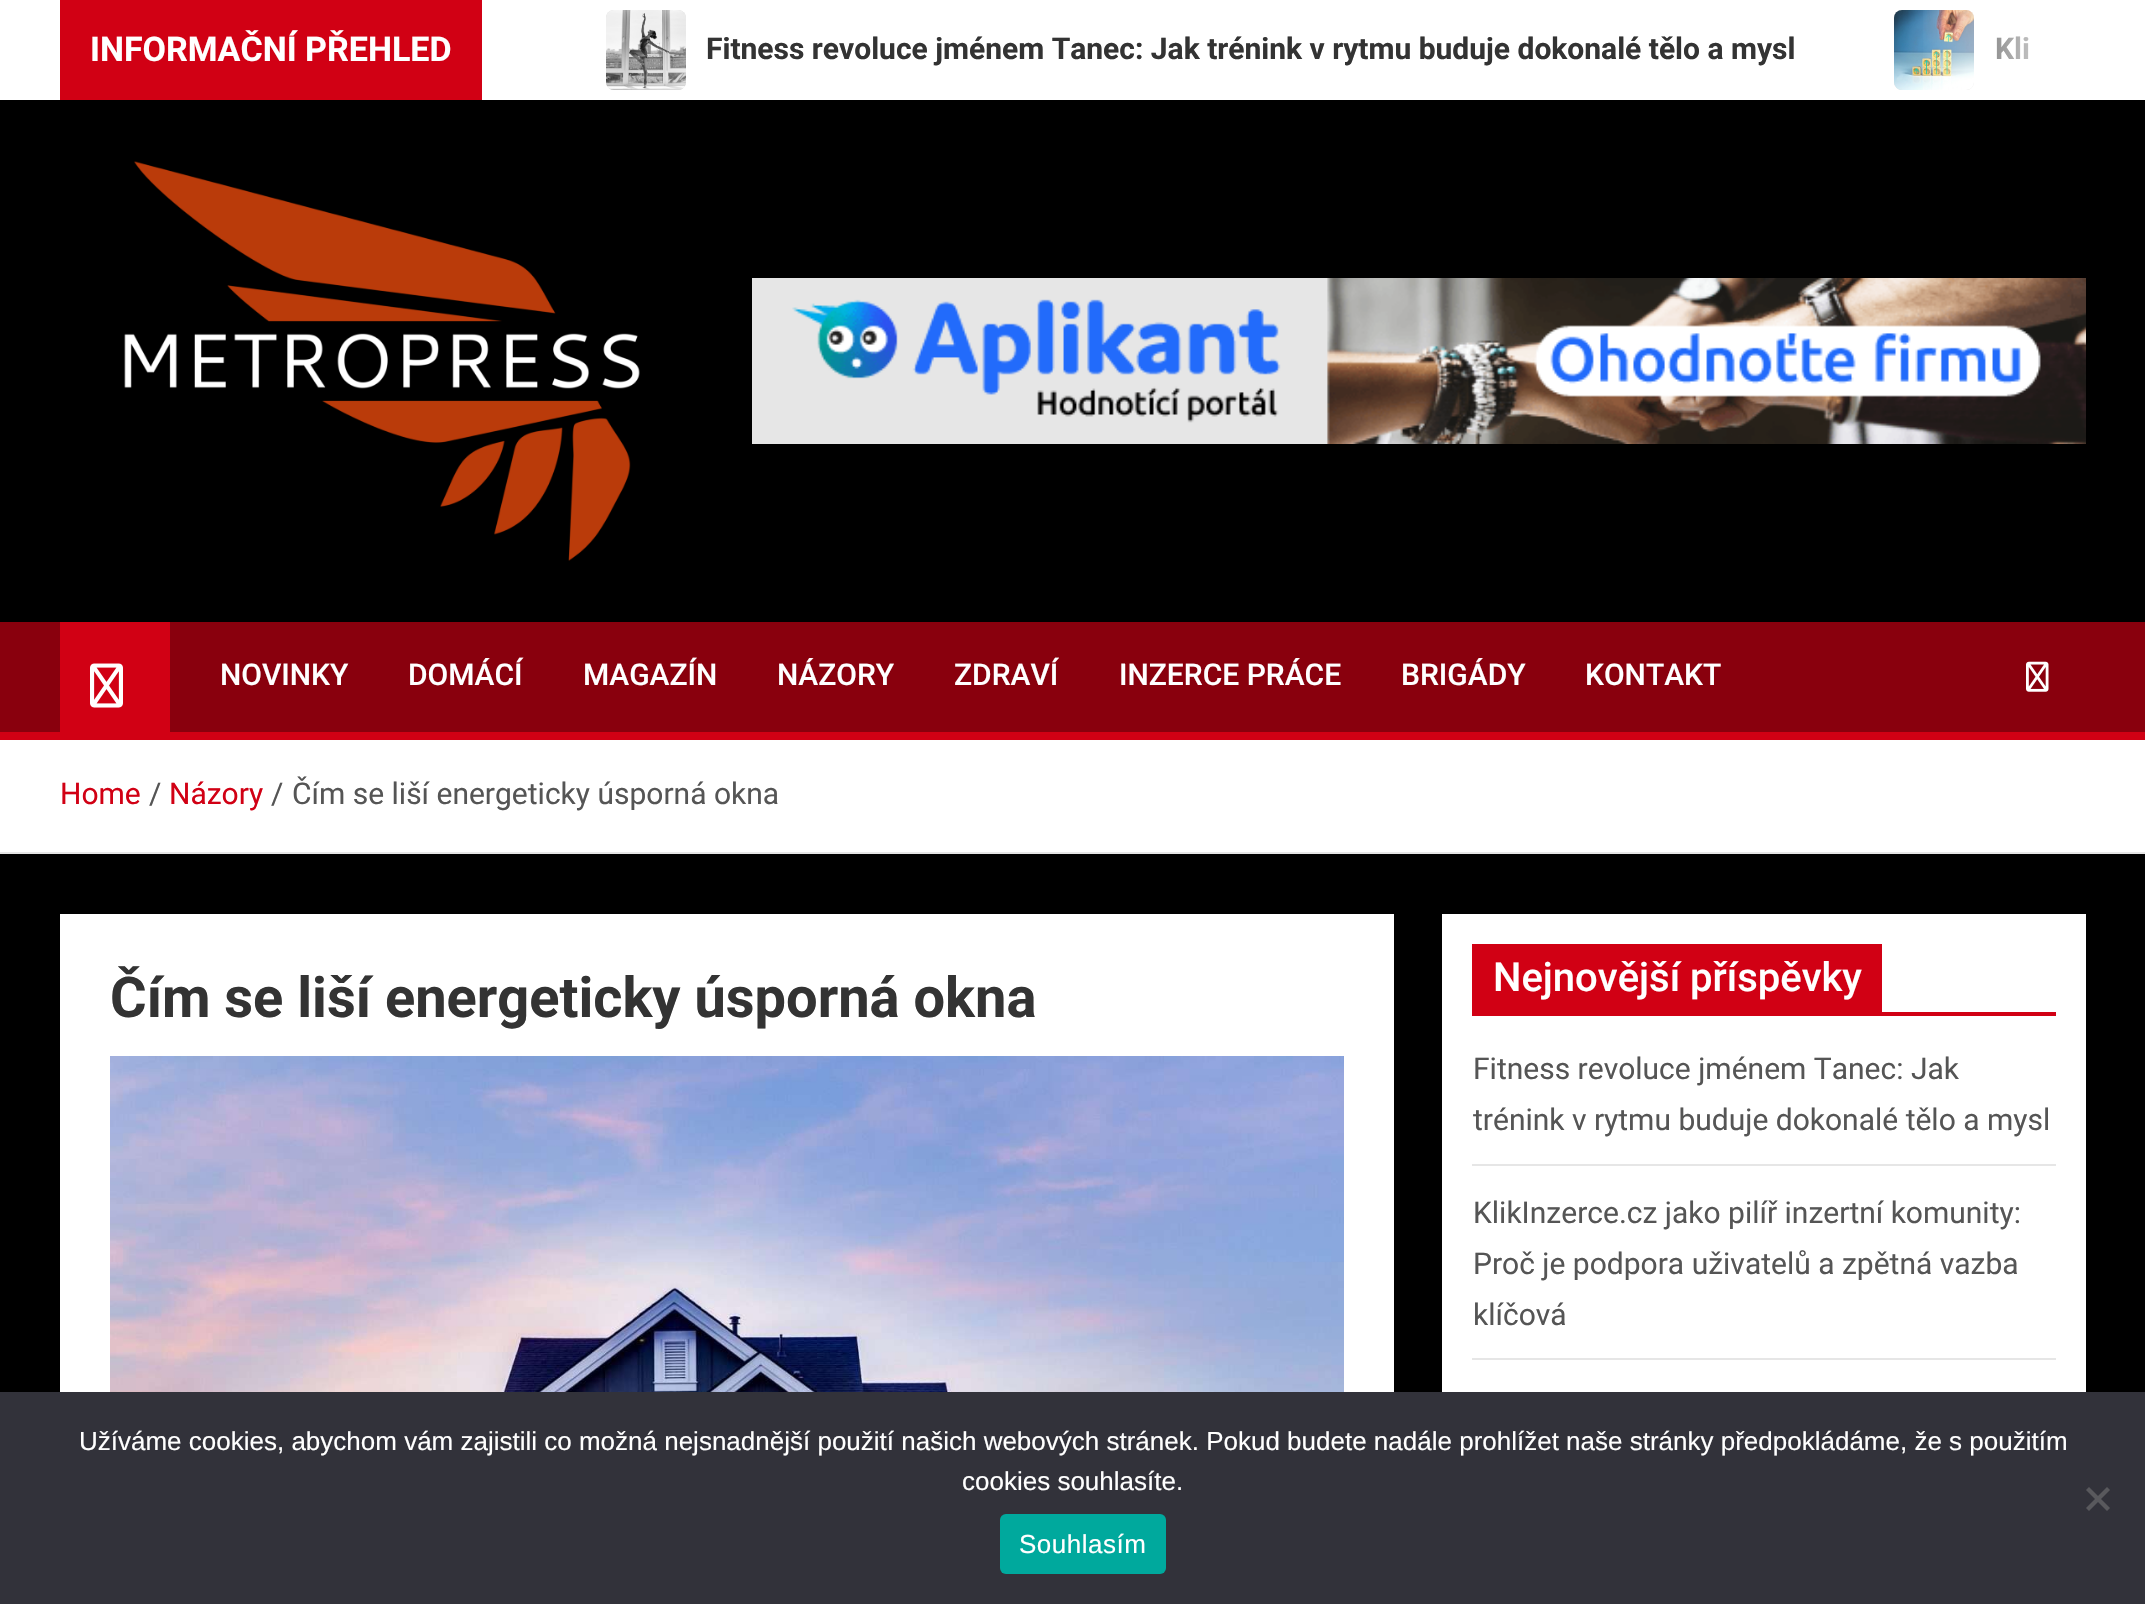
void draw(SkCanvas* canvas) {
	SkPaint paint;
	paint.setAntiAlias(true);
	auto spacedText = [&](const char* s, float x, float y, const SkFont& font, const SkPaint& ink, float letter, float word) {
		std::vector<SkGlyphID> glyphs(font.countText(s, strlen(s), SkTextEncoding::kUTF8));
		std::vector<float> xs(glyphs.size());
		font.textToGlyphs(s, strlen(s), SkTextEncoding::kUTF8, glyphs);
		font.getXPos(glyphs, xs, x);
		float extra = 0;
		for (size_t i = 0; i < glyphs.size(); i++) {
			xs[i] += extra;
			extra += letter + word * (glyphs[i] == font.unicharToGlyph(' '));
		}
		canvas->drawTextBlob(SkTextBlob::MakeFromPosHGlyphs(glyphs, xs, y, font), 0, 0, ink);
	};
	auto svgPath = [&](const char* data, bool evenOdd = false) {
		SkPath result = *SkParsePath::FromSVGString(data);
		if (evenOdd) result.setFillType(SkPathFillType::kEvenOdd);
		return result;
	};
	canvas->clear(0xff000000);
	paint.setColor(0xffffffff);
	canvas->drawRect(SkRect::MakeXYWH(0, 0, 2145, 100), paint);
	paint.setColor(0xffd10014);
	canvas->drawRect(SkRect::MakeXYWH(60, 0, 422, 100), paint);
	SkFont f1(fontMgr->matchFamilyStyle("Roboto", SkFontStyle::Bold()), 34);
	f1.setSubpixel(true);
	paint.setColor(0xffffffff);
	canvas->drawString("INFORMAČNÍ PŘEHLED", 90, 61, f1, paint);
	paint.setColor(0xffdddddd);
	canvas->drawRoundRect(SkRect::MakeXYWH(1894, 10, 80, 80), 8, 8, paint);
	canvas->drawImageRect(SkImages::DeferredFromEncodedData(SkData::MakeFromFileName("img2.png")), SkRect::MakeXYWH(1894, 10, 80, 80), SkSamplingOptions());
	SkFont f2(fontMgr->matchFamilyStyle("Roboto", SkFontStyle::Bold()), 30);
	f2.setSubpixel(true);
	paint.setColor(0xff333333);
	canvas->drawString("Kli", 1995, 59, f2, paint);
	{
		const SkColor colors[] = {0x00ffffff, 0xffffffff};
		const float stops[] = {0, 1};
		const SkPoint ends[] = {{1920, 50}, {2080, 50}};
		paint.setShader(SkGradientShader::MakeLinear(ends, colors, stops, 2, SkTileMode::kClamp));
		paint.setAlpha(255);
	}
	canvas->drawRect(SkRect::MakeXYWH(1923, 10, 106, 79), paint);
	paint.setShader(nullptr);
	paint.setColor(0xffdddddd);
	canvas->drawRoundRect(SkRect::MakeXYWH(606, 10, 80, 80), 8, 8, paint);
	canvas->drawImageRect(SkImages::DeferredFromEncodedData(SkData::MakeFromFileName("img1.png")), SkRect::MakeXYWH(606, 10, 80, 80), SkSamplingOptions());
	paint.setColor(0xff333333);
	canvas->drawString("Fitness revoluce jménem Tanec: Jak trénink v rytmu buduje dokonalé tělo a mysl", 706, 59, f2, paint);
	canvas->drawImageRect(SkImages::DeferredFromEncodedData(SkData::MakeFromFileName("img3.png")), SkRect::MakeXYWH(124, 161, 516, 400), SkSamplingOptions());
	canvas->drawImageRect(SkImages::DeferredFromEncodedData(SkData::MakeFromFileName("img4.png")), SkRect::MakeXYWH(752, 278, 1334, 166), SkSamplingOptions());
	paint.setColor(0xff89000d);
	canvas->drawRect(SkRect::MakeXYWH(0, 622, 2145, 110), paint);
	paint.setColor(0xffd10014);
	canvas->drawRect(SkRect::MakeXYWH(0, 732, 2145, 8), paint);
	canvas->drawRect(SkRect::MakeXYWH(60, 622, 110, 110), paint);
	canvas->drawImageRect(SkImages::DeferredFromEncodedData(SkData::MakeFromFileName("img5.png")), SkRect::MakeXYWH(90, 663, 33, 45), SkSamplingOptions());
	SkFont f3(fontMgr->matchFamilyStyle("Roboto", SkFontStyle(500, SkFontStyle::kNormal_Width, SkFontStyle::kUpright_Slant)), 30);
	f3.setSubpixel(true);
	paint.setColor(0xffffffff);
	canvas->drawString("NOVINKY", 220, 685, f3, paint);
	canvas->drawString("DOMÁCÍ", 408, 685, f3, paint);
	canvas->drawString("MAGAZÍN", 583, 685, f3, paint);
	canvas->drawString("NÁZORY", 777, 685, f3, paint);
	canvas->drawString("ZDRAVÍ", 954, 685, f3, paint);
	canvas->drawString("INZERCE PRÁCE", 1119, 685, f3, paint);
	canvas->drawString("BRIGÁDY", 1401, 685, f3, paint);
	canvas->drawString("KONTAKT", 1585, 685, f3, paint);
	canvas->drawImageRect(SkImages::DeferredFromEncodedData(SkData::MakeFromFileName("img6.png")), SkRect::MakeXYWH(2026, 661, 23, 31), SkSamplingOptions());
	canvas->drawRect(SkRect::MakeXYWH(0, 740, 2145, 112), paint);
	paint.setColor(0xffe6e6e6);
	canvas->drawRect(SkRect::MakeXYWH(0, 852, 2145, 2), paint);
	SkFont f4(fontMgr->matchFamilyStyle("Roboto", SkFontStyle::Normal()), 30);
	f4.setSubpixel(true);
	paint.setColor(0xffd10014);
	canvas->drawString("Home", 60, 804, f4, paint);
	paint.setColor(0xff555555);
	canvas->drawString("/", 149, 804, f4, paint);
	paint.setColor(0xffd10014);
	canvas->drawString("Názory", 169, 804, f4, paint);
	paint.setColor(0xff555555);
	canvas->drawString("/", 271, 804, f4, paint);
	canvas->drawString("Čím se liší energeticky úsporná okna", 292, 804, f4, paint);
	paint.setColor(0xffffffff);
	canvas->drawRect(SkRect::MakeXYWH(60, 914, 1334, 478), paint);
	SkFont f5(fontMgr->matchFamilyStyle("Roboto", SkFontStyle::Bold()), 56);
	f5.setSubpixel(true);
	paint.setColor(0xff333333);
	canvas->drawString("Čím se liší energeticky úsporná okna", 110, 1017, f5, paint);
	canvas->drawImageRect(SkImages::DeferredFromEncodedData(SkData::MakeFromFileName("img7.png")), SkRect::MakeXYWH(110, 1056, 1234, 336), SkSamplingOptions());
	paint.setColor(0xffffffff);
	canvas->drawRect(SkRect::MakeXYWH(1442, 914, 644, 478), paint);
	paint.setColor(0xffd10014);
	canvas->drawRect(SkRect::MakeXYWH(1472, 1012, 584, 4), paint);
	canvas->drawRect(SkRect::MakeXYWH(1472, 944, 410, 68), paint);
	SkFont f6(fontMgr->matchFamilyStyle("Roboto", SkFontStyle(500, SkFontStyle::kNormal_Width, SkFontStyle::kUpright_Slant)), 40);
	f6.setSubpixel(true);
	paint.setColor(0xffffffff);
	canvas->drawString("Nejnovější příspěvky", 1493, 991, f6, paint);
	paint.setColor(0xffe6e6e6);
	canvas->drawRect(SkRect::MakeXYWH(1472, 1164, 584, 2), paint);
	paint.setColor(0xff555555);
	canvas->drawString("Fitness revoluce jménem Tanec: Jak", 1473, 1079, f4, paint);
	canvas->drawString("trénink v rytmu buduje dokonalé tělo a mysl", 1473, 1130, f4, paint);
	paint.setColor(0xffe6e6e6);
	canvas->drawRect(SkRect::MakeXYWH(1472, 1358, 584, 2), paint);
	paint.setColor(0xff555555);
	canvas->drawString("KlikInzerce.cz jako pilíř inzertní komunity:", 1473, 1223, f4, paint);
	canvas->drawString("Proč je podpora uživatelů a zpětná vazba", 1473, 1274, f4, paint);
	canvas->drawString("klíčová", 1473, 1325, f4, paint);
	paint.setColor(0xff32323a);
	canvas->drawRect(SkRect::MakeXYWH(0, 1392, 2145, 212), paint);
	SkFont f7(fontMgr->matchFamilyStyle("Liberation Sans", SkFontStyle::Normal()), 26);
	f7.setSubpixel(true);
	paint.setColor(0xffffffff);
	canvas->drawString("Užíváme cookies, abychom vám zajistili co možná nejsnadnější použití našich webových stránek. Pokud budete nadále prohlížet naše stránky předpokládáme, že s použitím", 79, 1450, f7, paint);
	canvas->drawString("cookies souhlasíte.", 962, 1490, f7, paint);
	paint.setColor(0xff59595d);
	canvas->drawPath(svgPath("M2107 1487L2110 1490L2089 1511L2086 1508Z"), paint);
	canvas->drawPath(svgPath("M2086 1490L2089 1487L2110 1508L2107 1511Z"), paint);
	paint.setColor(0xff00a99d);
	canvas->drawRoundRect(SkRect::MakeXYWH(1000, 1514, 166, 60), 6, 6, paint);
	paint.setColor(0xffffffff);
	spacedText("Souhlasím", 1019, 1553, f7, paint, 0.5, 0);
}
